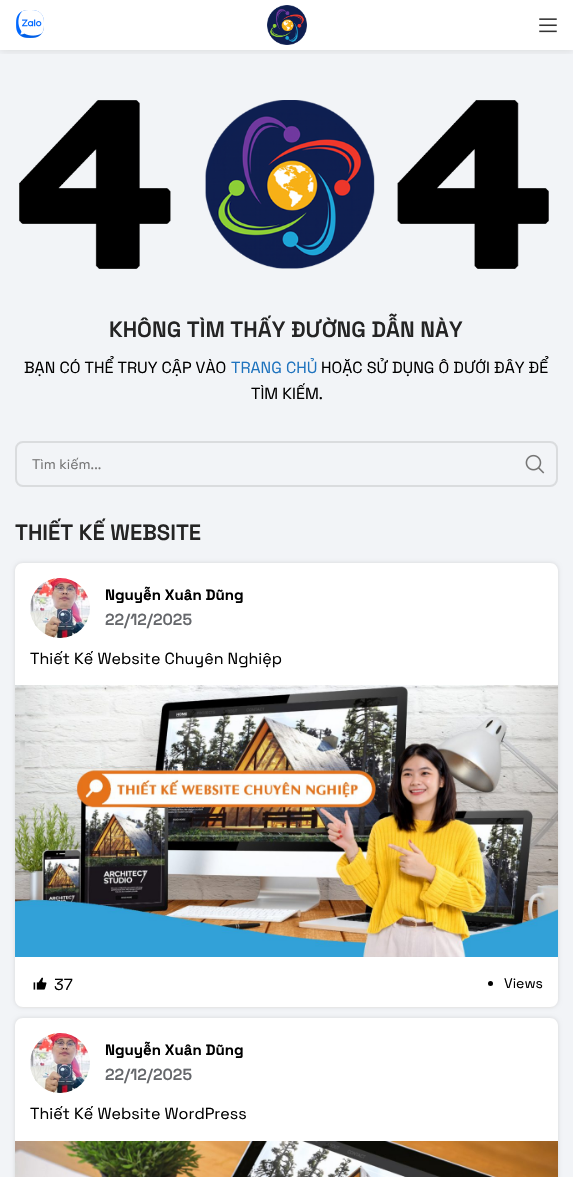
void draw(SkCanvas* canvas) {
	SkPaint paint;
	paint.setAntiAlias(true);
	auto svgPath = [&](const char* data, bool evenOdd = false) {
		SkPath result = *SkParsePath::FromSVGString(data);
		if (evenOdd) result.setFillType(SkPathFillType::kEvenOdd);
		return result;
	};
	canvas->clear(0xffffffff);
	paint.setColor(0xfff2f4f7);
	canvas->drawRect(SkRect::MakeXYWH(0, 50, 573, 1127), paint);
	canvas->save();
	canvas->clipRect(SkRect::MakeXYWH(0, 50, 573, 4));
	paint.setColor(0x1a000000);
	paint.setMaskFilter(SkMaskFilter::MakeBlur(kNormal_SkBlurStyle, 4));
	canvas->drawRect(SkRect::MakeXYWH(0, 1, 573, 50), paint);
	paint.setMaskFilter(nullptr);
	canvas->restore();
	canvas->drawImageRect(SkImages::DeferredFromEncodedData(SkData::MakeFromFileName("img1.png")), SkRect::MakeXYWH(16, 10, 28, 28), SkSamplingOptions());
	canvas->drawImageRect(SkImages::DeferredFromEncodedData(SkData::MakeFromFileName("img2.png")), SkRect::MakeXYWH(267, 5, 40, 40), SkSamplingOptions());
	canvas->drawImageRect(SkImages::DeferredFromEncodedData(SkData::MakeFromFileName("img3.png")), SkRect::MakeXYWH(539, 18, 18, 15), SkSamplingOptions());
	canvas->drawImageRect(SkImages::DeferredFromEncodedData(SkData::MakeFromFileName("img4.png")), SkRect::MakeXYWH(19, 100, 530, 169), SkSamplingOptions());
	SkFont f1(fontMgr->matchFamilyStyle("Space Grotesk", SkFontStyle(600, SkFontStyle::kNormal_Width, SkFontStyle::kUpright_Slant)), 22);
	f1.setSubpixel(true);
	paint.setColor(0xff242424);
	canvas->drawString("KHÔNG TÌM THẤY ĐƯỜNG DẪN NÀY", 109, 337, f1, paint);
	SkFont f2(fontMgr->matchFamilyStyle("Space Grotesk", SkFontStyle::Normal()), 16);
	f2.setSubpixel(true);
	paint.setColor(0xff000000);
	canvas->drawString("BẠN CÓ THỂ TRUY CẬP VÀO", 24, 373, f2, paint);
	paint.setColor(0xff1e73be);
	canvas->drawString("TRANG CHỦ", 231, 373, f2, paint);
	paint.setColor(0xff000000);
	canvas->drawString("HOẶC SỬ DỤNG Ô DƯỚI ĐÂY ĐỂ", 321, 373, f2, paint);
	canvas->drawString("TÌM KIẾM.", 251, 399, f2, paint);
	paint.setStroke(true);
	paint.setStrokeWidth(2);
	paint.setColor(0xffdadcde);
	canvas->drawRoundRect(SkRect::MakeXYWH(16, 442, 541, 44), 7, 7, paint);
	SkFont f3(fontMgr->matchFamilyStyle("Space Grotesk", SkFontStyle::Normal()), 14);
	f3.setSubpixel(true);
	paint.setStroke(false);
	paint.setColor(0xff767676);
	canvas->drawString("Tìm kiếm...", 32, 469, f3, paint);
	canvas->drawImageRect(SkImages::DeferredFromEncodedData(SkData::MakeFromFileName("img5.png")), SkRect::MakeXYWH(525, 454, 20, 20), SkSamplingOptions());
	paint.setColor(0xff242424);
	canvas->drawString("THIẾT KẾ WEBSITE", 15, 540, f1, paint);
	paint.setColor(0xfff3f3f3);
	canvas->drawRect(SkRect::MakeXYWH(19, 1007, 535, 1), paint);
	paint.setColor(0x1f000000);
	paint.setMaskFilter(SkMaskFilter::MakeBlur(kNormal_SkBlurStyle, 2));
	canvas->drawRoundRect(SkRect::MakeXYWH(15, 563, 543, 444), 8, 8, paint);
	paint.setMaskFilter(nullptr);
	paint.setColor(0xffffffff);
	canvas->drawPath(svgPath("M23 563H550C554.5 563 558 566.5 558 571V685H15V571C15 566.5 18.5 563 23 563Z"), paint);
	canvas->drawImageRect(SkImages::DeferredFromEncodedData(SkData::MakeFromFileName("img6.png")), SkRect::MakeXYWH(30, 578, 60, 60), SkSamplingOptions());
	SkFont f4(fontMgr->matchFamilyStyle("Space Grotesk", SkFontStyle::Bold()), 15);
	f4.setSubpixel(true);
	paint.setColor(0xff000000);
	canvas->drawString("Nguyễn Xuân Dũng", 105, 600, f4, paint);
	SkFont f5(fontMgr->matchFamilyStyle("Space Grotesk", SkFontStyle(600, SkFontStyle::kNormal_Width, SkFontStyle::kUpright_Slant)), 16);
	f5.setSubpixel(true);
	paint.setColor(0xff65676b);
	canvas->drawString("22/12/2025", 105, 625, f5, paint);
	paint.setColor(0xff000000);
	canvas->drawString("Thiết Kế Website Chuyên Nghiệp", 30, 664, f2, paint);
	canvas->drawImageRect(SkImages::DeferredFromEncodedData(SkData::MakeFromFileName("img7.png")), SkRect::MakeXYWH(15, 685, 543, 272), SkSamplingOptions());
	paint.setColor(0xffffffff);
	canvas->drawPath(svgPath("M15 957H558V999C558 1003.5 554.5 1007 550 1007H23C18.5 1007 15 1003.5 15 999Z"), paint);
	canvas->drawImageRect(SkImages::DeferredFromEncodedData(SkData::MakeFromFileName("img8.png")), SkRect::MakeXYWH(33, 977, 14, 13), SkSamplingOptions());
	paint.setColor(0xff000000);
	canvas->drawString("37", 54, 990, f2, paint);
	canvas->drawCircle(490.5, 983.5, 2.5, paint);
	canvas->drawString("Views", 504, 988, f3, paint);
	paint.setColor(0x1f000000);
	paint.setMaskFilter(SkMaskFilter::MakeBlur(kNormal_SkBlurStyle, 2));
	canvas->drawRoundRect(SkRect::MakeXYWH(15, 1018, 543, 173), 8, 8, paint);
	paint.setMaskFilter(nullptr);
	paint.setColor(0xffffffff);
	canvas->drawPath(svgPath("M23 1018H550C554.5 1018 558 1021.5 558 1026V1141H15V1026C15 1021.5 18.5 1018 23 1018Z"), paint);
	canvas->drawImageRect(SkImages::DeferredFromEncodedData(SkData::MakeFromFileName("img6.png")), SkRect::MakeXYWH(30, 1033, 60, 60), SkSamplingOptions());
	paint.setColor(0xff000000);
	canvas->drawString("Nguyễn Xuân Dũng", 105, 1055, f4, paint);
	paint.setColor(0xff65676b);
	canvas->drawString("22/12/2025", 105, 1080, f5, paint);
	paint.setColor(0xff000000);
	canvas->drawString("Thiết Kế Website WordPress", 30, 1119, f2, paint);
	canvas->drawImageRect(SkImages::DeferredFromEncodedData(SkData::MakeFromFileName("img9.png")), SkRect::MakeXYWH(15, 1141, 543, 36), SkSamplingOptions());
}
